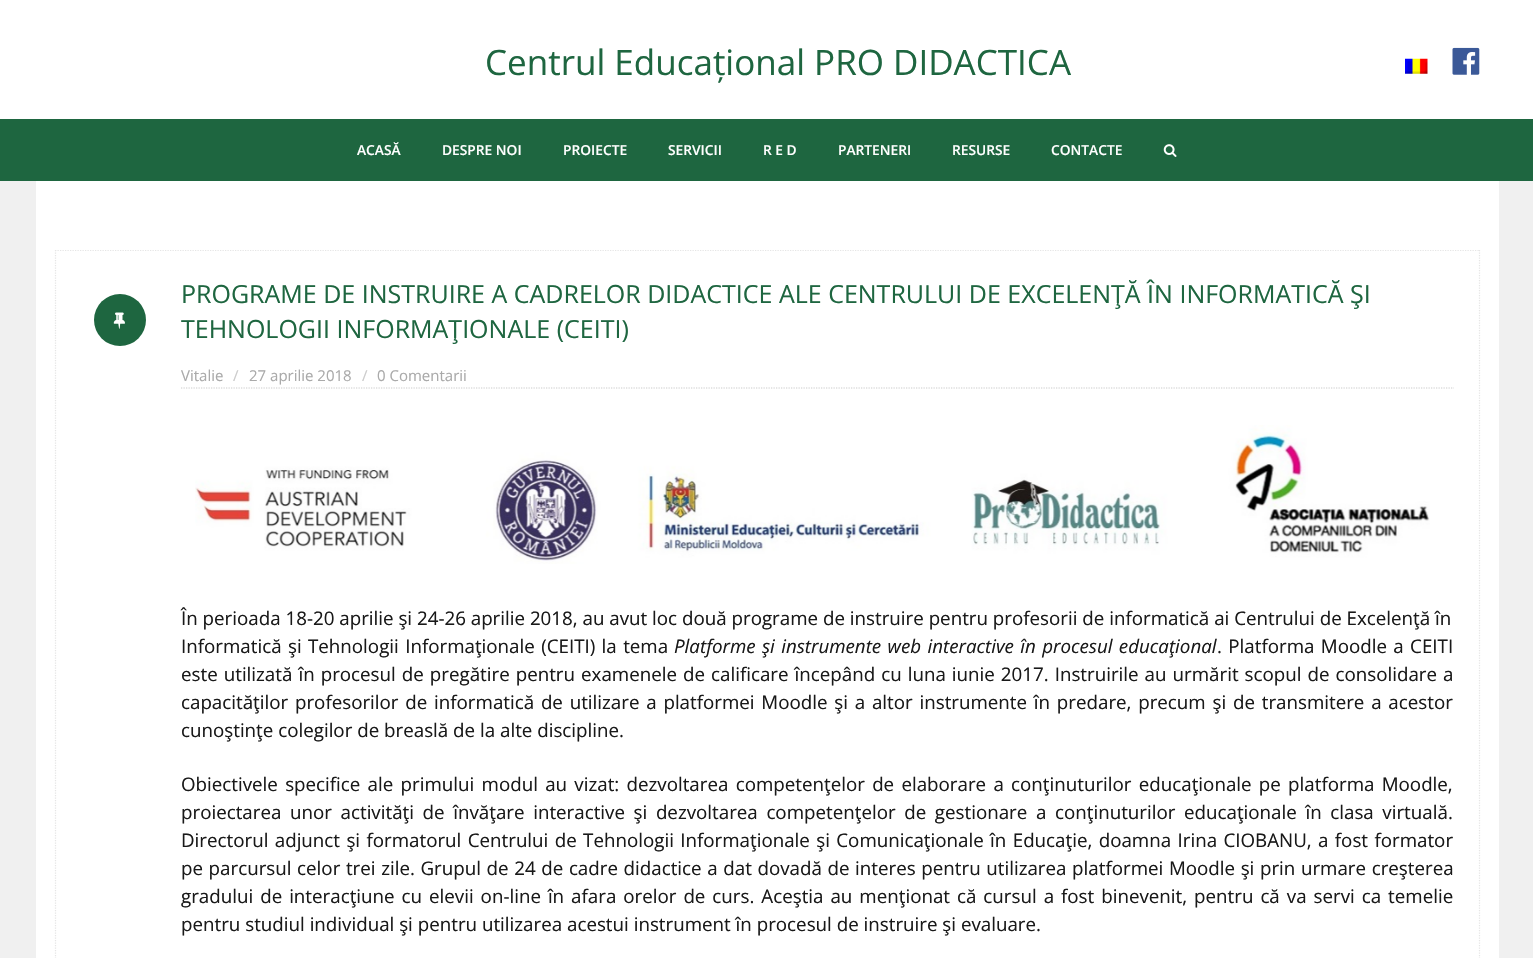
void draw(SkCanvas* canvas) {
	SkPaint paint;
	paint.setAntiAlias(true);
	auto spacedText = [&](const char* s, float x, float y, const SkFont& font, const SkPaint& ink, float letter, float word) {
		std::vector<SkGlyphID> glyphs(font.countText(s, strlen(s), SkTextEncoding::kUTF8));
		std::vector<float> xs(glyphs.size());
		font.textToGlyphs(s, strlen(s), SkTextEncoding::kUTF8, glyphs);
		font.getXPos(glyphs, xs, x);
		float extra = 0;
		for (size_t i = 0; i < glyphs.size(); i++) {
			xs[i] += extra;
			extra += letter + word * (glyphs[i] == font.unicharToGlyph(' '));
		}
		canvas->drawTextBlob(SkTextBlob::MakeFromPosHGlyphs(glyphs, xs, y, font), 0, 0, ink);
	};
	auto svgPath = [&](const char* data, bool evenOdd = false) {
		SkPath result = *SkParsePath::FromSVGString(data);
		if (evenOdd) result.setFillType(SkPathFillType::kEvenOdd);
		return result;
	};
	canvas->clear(0xfff0f0f0);
	paint.setColor(0xffffffff);
	canvas->drawRect(SkRect::MakeXYWH(0, 0, 1533, 119), paint);
	SkFont f1(fontMgr->matchFamilyStyle("Open Sans", SkFontStyle::Normal()), 35);
	f1.setSubpixel(true);
	paint.setColor(0xff1e6640);
	canvas->drawString("Centrul Educațional PRO DIDACTICA", 485, 75, f1, paint);
	canvas->drawImageRect(SkImages::DeferredFromEncodedData(SkData::MakeFromFileName("img1.png")), SkRect::MakeXYWH(1405, 58, 23, 16), SkSamplingOptions());
	canvas->drawImageRect(SkImages::DeferredFromEncodedData(SkData::MakeFromFileName("img2.png")), SkRect::MakeXYWH(1452, 47, 28, 28), SkSamplingOptions());
	canvas->drawRect(SkRect::MakeXYWH(0, 119, 1533, 62), paint);
	SkFont f2(fontMgr->matchFamilyStyle("Open Sans", SkFontStyle(600, SkFontStyle::kNormal_Width, SkFontStyle::kUpright_Slant)), 13.75);
	f2.setSubpixel(true);
	paint.setColor(0xffffffff);
	canvas->drawString("ACASĂ", 357, 155, f2, paint);
	canvas->drawString("DESPRE NOI", 442, 155, f2, paint);
	canvas->drawString("PROIECTE", 563, 155, f2, paint);
	canvas->drawString("SERVICII", 668, 155, f2, paint);
	canvas->drawString("R E D", 763, 155, f2, paint);
	canvas->drawString("PARTENERI", 838, 155, f2, paint);
	canvas->drawString("RESURSE", 952, 155, f2, paint);
	canvas->drawString("CONTACTE", 1051, 155, f2, paint);
	canvas->drawImageRect(SkImages::DeferredFromEncodedData(SkData::MakeFromFileName("img3.png")), SkRect::MakeXYWH(1163, 144, 14, 13), SkSamplingOptions());
	canvas->drawRect(SkRect::MakeXYWH(36, 181, 1463, 777), paint);
	paint.setStroke(true);
	paint.setStrokeWidth(1.2);
	paint.setColor(0xffe5e5e5);
	paint.setPathEffect(SkDashPathEffect::Make({{1.25f, 1.25f}}, 0));
	canvas->drawPath(svgPath("M55 250.5H1480"), paint);
	paint.setPathEffect(nullptr);
	paint.setPathEffect(SkDashPathEffect::Make({{1.25f, 1.25f}}, 0));
	canvas->drawPath(svgPath("M1479.5 250V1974"), paint);
	paint.setPathEffect(nullptr);
	paint.setPathEffect(SkDashPathEffect::Make({{1.25f, 1.25f}}, 0));
	canvas->drawPath(svgPath("M55.5 250V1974"), paint);
	paint.setPathEffect(nullptr);
	paint.setStroke(false);
	paint.setColor(0xff1e6640);
	canvas->drawCircle(120, 320, 26, paint);
	canvas->drawImageRect(SkImages::DeferredFromEncodedData(SkData::MakeFromFileName("img4.png")), SkRect::MakeXYWH(113, 312, 12, 17), SkSamplingOptions());
	SkFont f3(fontMgr->matchFamilyStyle("Open Sans", SkFontStyle::Normal()), 25);
	f3.setSubpixel(true);
	canvas->drawString("PROGRAME DE INSTRUIRE A CADRELOR DIDACTICE ALE CENTRULUI DE EXCELENŢĂ ÎN INFORMATICĂ ŞI", 181, 303, f3, paint);
	canvas->drawString("TEHNOLOGII INFORMAŢIONALE (CEITI)", 181, 338, f3, paint);
	SkFont f4(fontMgr->matchFamilyStyle("Open Sans", SkFontStyle::Normal()), 15);
	f4.setSubpixel(true);
	paint.setColor(0xffaaaaaa);
	canvas->drawString("Vitalie", 181, 381, f4, paint);
	paint.setColor(0xffcccccc);
	canvas->drawString("/", 233, 381, f4, paint);
	paint.setColor(0xffaaaaaa);
	canvas->drawString("27 aprilie 2018", 249, 381, f4, paint);
	paint.setColor(0xffcccccc);
	canvas->drawString("/", 362, 381, f4, paint);
	paint.setColor(0xffaaaaaa);
	canvas->drawString("0 Comentarii", 377, 381, f4, paint);
	paint.setStroke(true);
	paint.setColor(0xffcccccc);
	paint.setPathEffect(SkDashPathEffect::Make({{1.25f, 1.25f}}, 0));
	canvas->drawPath(svgPath("M181 388H1454"), paint);
	paint.setPathEffect(nullptr);
	canvas->drawImageRect(SkImages::DeferredFromEncodedData(SkData::MakeFromFileName("img5.png")), SkRect::MakeXYWH(195, 425, 1235, 139), SkSamplingOptions());
	SkFont f5(fontMgr->matchFamilyStyle("Open Sans", SkFontStyle::Normal()), 18.75);
	f5.setSubpixel(true);
	paint.setStroke(false);
	paint.setColor(0xff191919);
	canvas->drawString("În perioada 18-20 aprilie şi 24-26 aprilie 2018, au avut loc două programe de instruire pentru profesorii de informatică ai Centrului de Excelenţă în", 181, 625, f5, paint);
	spacedText("Informatică şi Tehnologii Informaţionale (CEITI) la tema", 181, 653, f5, paint, 0, 1.5);
	SkFont f6(fontMgr->matchFamilyStyle("Open Sans", SkFontStyle::Italic()), 18.75);
	f6.setSubpixel(true);
	spacedText("Platforme şi instrumente web interactive în procesul educaţional", 674, 653, f6, paint, 0, 1.5);
	spacedText(". Platforma Moodle a CEITI", 1217, 653, f5, paint, 0, 1.5);
	spacedText("este utilizată în procesul de pregătire pentru examenele de calificare începând cu luna iunie 2017. Instruirile au urmărit scopul de consolidare a", 181, 681, f5, paint, 0, 1.15);
	spacedText("capacităţilor profesorilor de informatică de utilizare a platformei Moodle şi a altor instrumente în predare, precum şi de transmitere a acestor", 181, 709, f5, paint, 0, 1.9);
	canvas->drawString("cunoştinţe colegilor de breaslă de la alte discipline.", 181, 737, f5, paint);
	spacedText("Obiectivele specifice ale primului modul au vizat: dezvoltarea competenţelor de elaborare a conţinuturilor educaţionale pe platforma Moodle,", 181, 791, f5, paint, 0, 2.4);
	spacedText("proiectarea unor activităţi de învăţare interactive şi dezvoltarea competenţelor de gestionare a conţinuturilor educaţionale în clasa virtuală.", 181, 819, f5, paint, 0, 3.75);
	spacedText("Directorul adjunct şi formatorul Centrului de Tehnologii Informaţionale şi Comunicaţionale în Educaţie, doamna Irina CIOBANU, a fost formator", 181, 847, f5, paint, 0, 1.5);
	spacedText("pe parcursul celor trei zile. Grupul de 24 de cadre didactice a dat dovadă de interes pentru utilizarea platformei Moodle şi prin urmare creşterea", 181, 875, f5, paint, 0, 0.75);
	spacedText("gradului de interacţiune cu elevii on-line în afara orelor de curs. Aceştia au menţionat că cursul a fost binevenit, pentru că va servi ca temelie", 181, 903, f5, paint, 0, 2.1);
	canvas->drawString("pentru studiul individual şi pentru utilizarea acestui instrument în procesul de instruire şi evaluare.", 181, 931, f5, paint);
}
